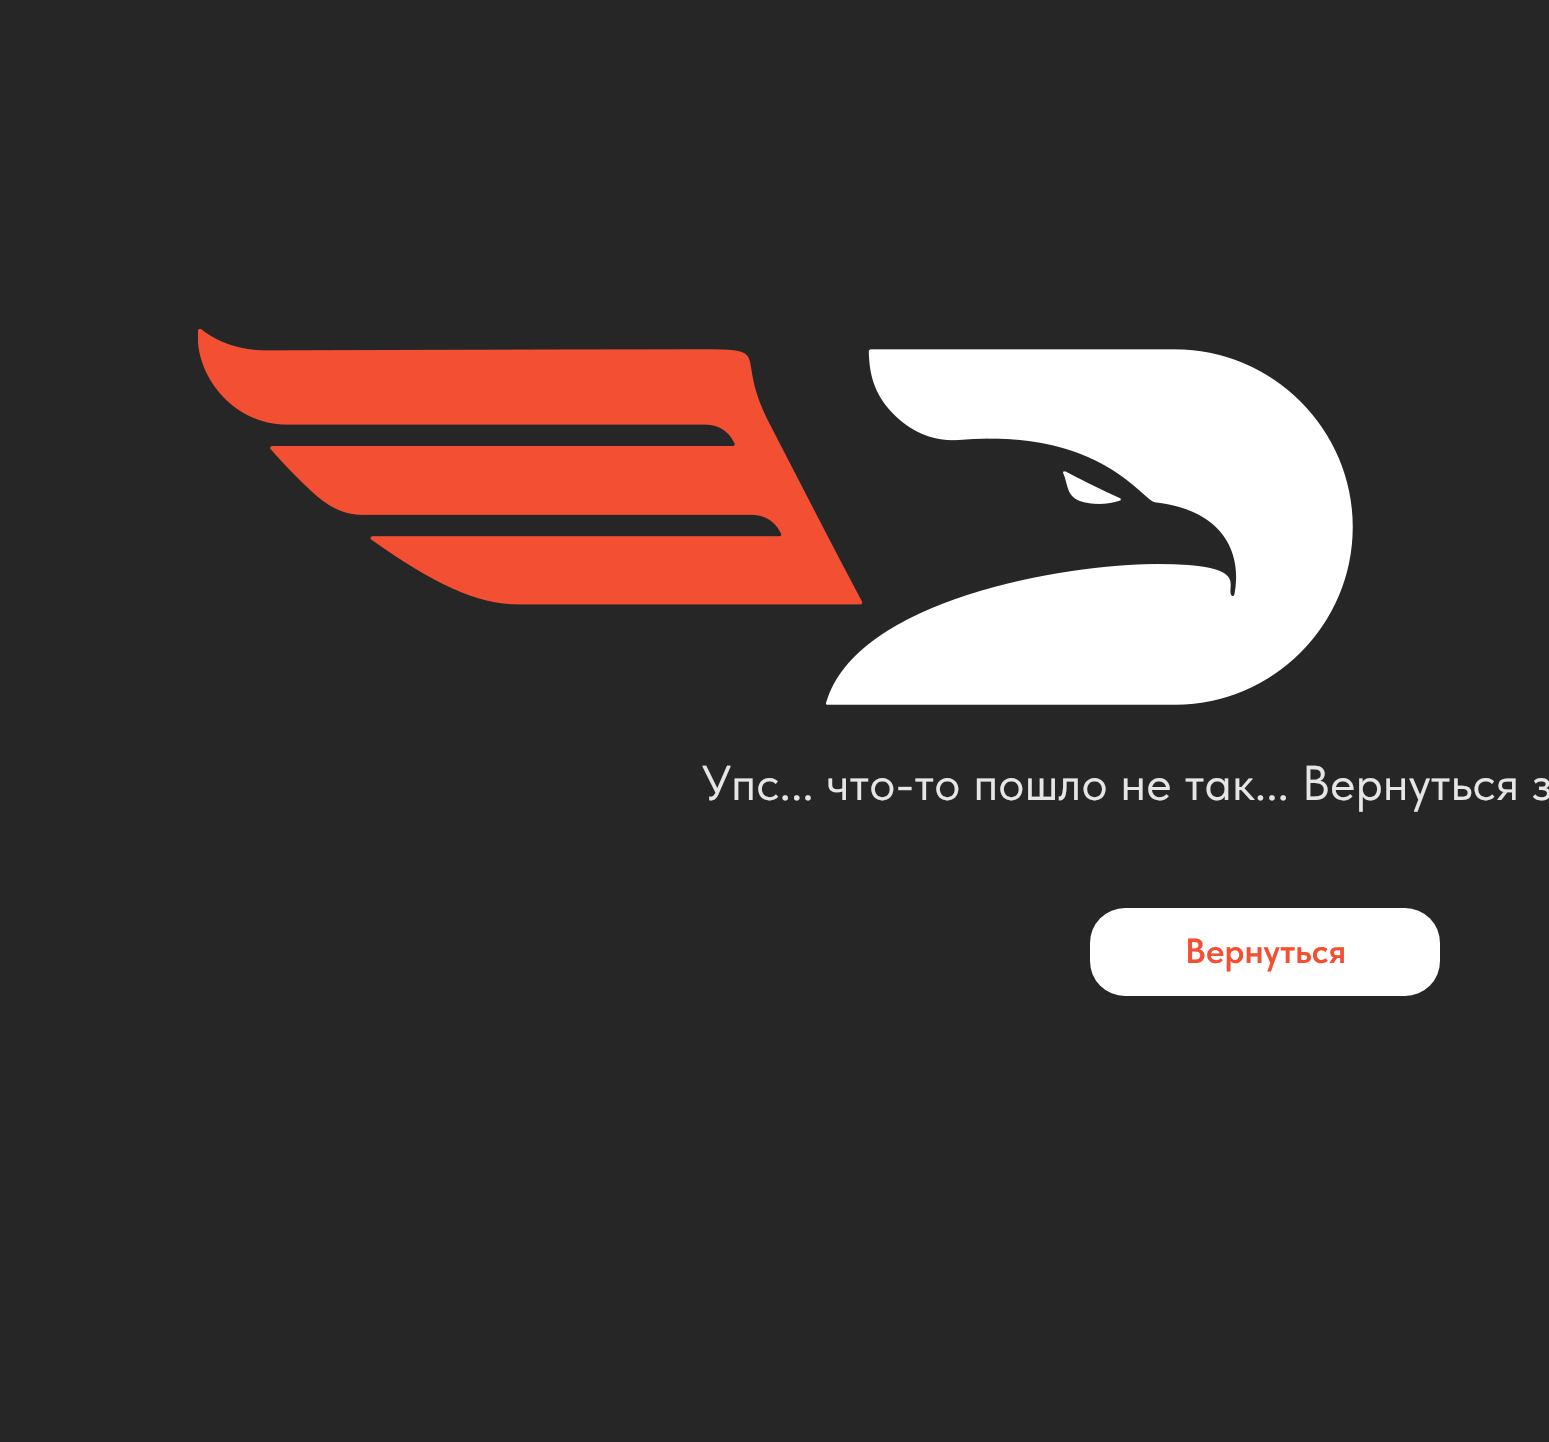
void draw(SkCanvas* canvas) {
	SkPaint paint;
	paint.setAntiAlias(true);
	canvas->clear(0xff262626);
	canvas->drawImageRect(SkImages::DeferredFromEncodedData(SkData::MakeFromFileName("img1.png")), SkRect::MakeXYWH(198, 329, 1155, 376), SkSamplingOptions());
	SkFont f1(fontMgr->matchFamilyStyle("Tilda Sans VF", SkFontStyle::Normal()), 49);
	f1.setSubpixel(true);
	paint.setColor(0xffe6e6e6);
	canvas->drawString("Упс... что-то пошло не так... Вернуться з", 702, 800, f1, paint);
	paint.setColor(0xffffffff);
	canvas->drawRoundRect(SkRect::MakeXYWH(1090, 908, 350, 88), 35, 35, paint);
	SkFont f2(fontMgr->matchFamilyStyle("Tilda Sans VF", SkFontStyle(600, SkFontStyle::kNormal_Width, SkFontStyle::kUpright_Slant)), 35);
	f2.setSubpixel(true);
	paint.setColor(0xfff24f33);
	canvas->drawString("Вернуться", 1185, 963, f2, paint);
}
